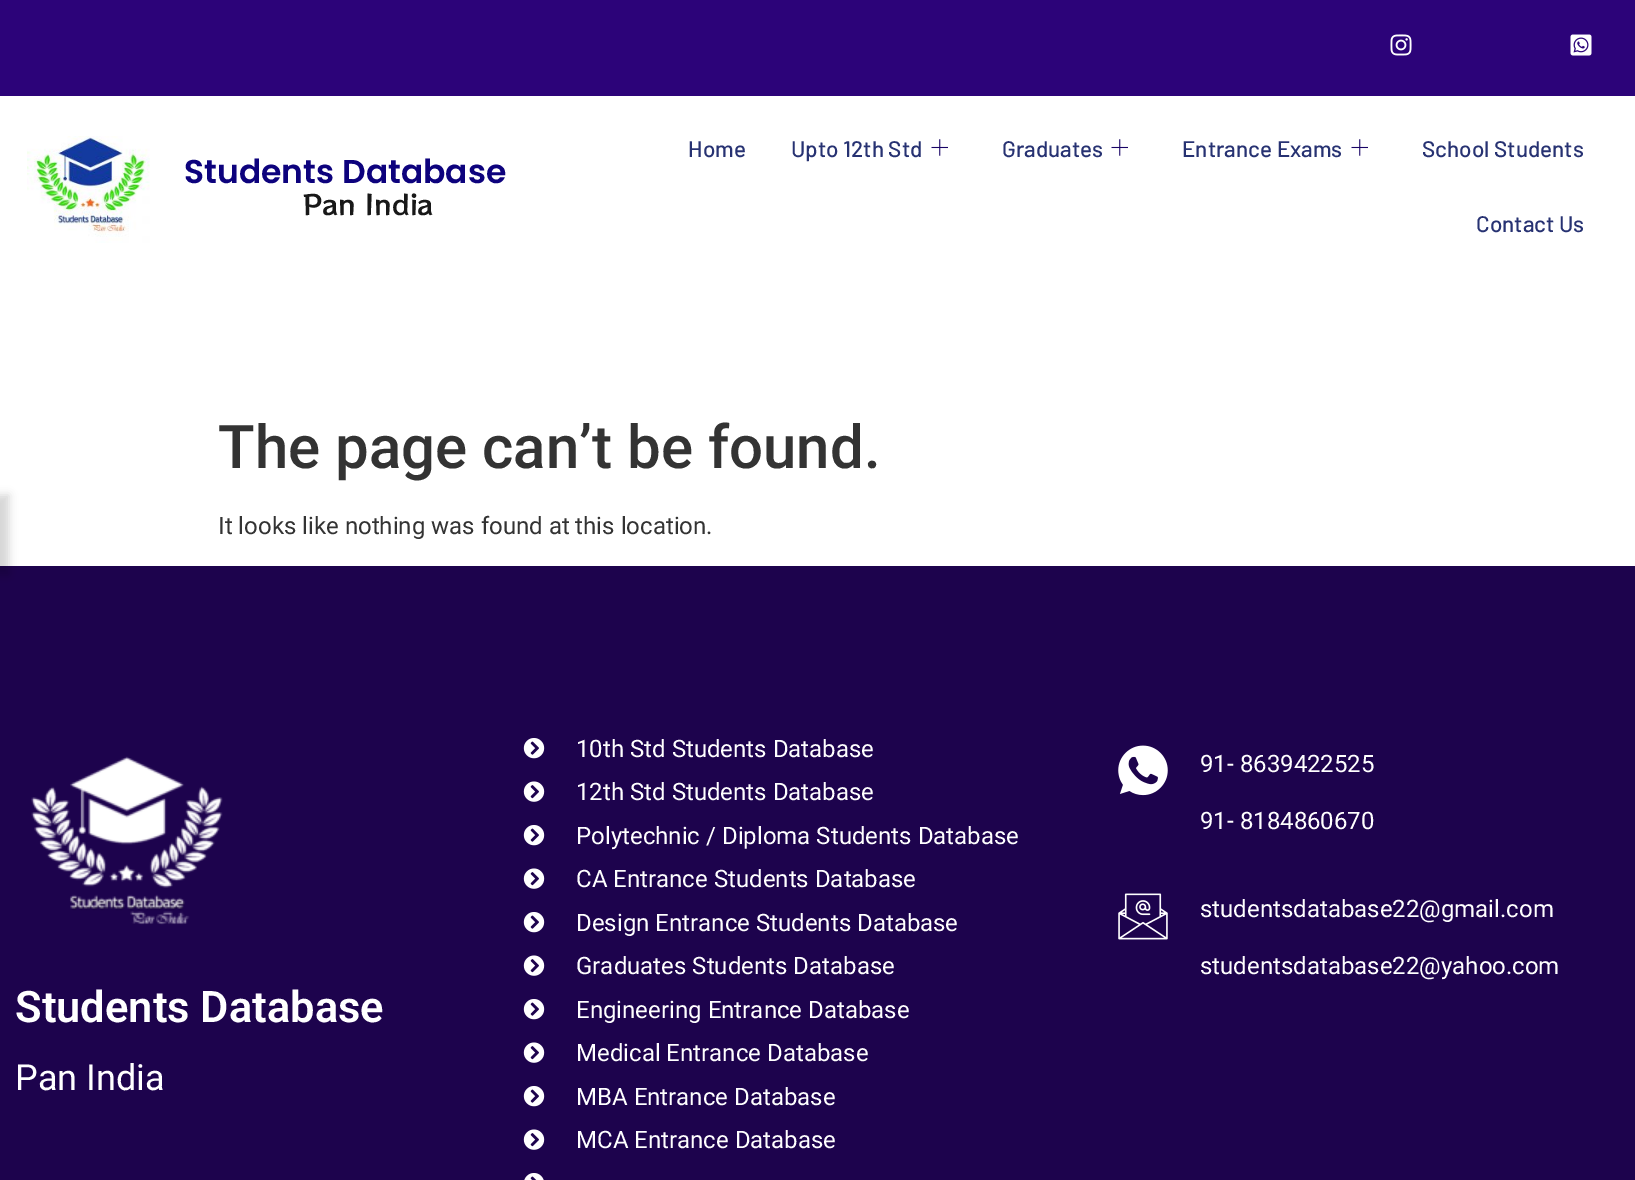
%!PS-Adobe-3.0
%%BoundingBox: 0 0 1635 1180
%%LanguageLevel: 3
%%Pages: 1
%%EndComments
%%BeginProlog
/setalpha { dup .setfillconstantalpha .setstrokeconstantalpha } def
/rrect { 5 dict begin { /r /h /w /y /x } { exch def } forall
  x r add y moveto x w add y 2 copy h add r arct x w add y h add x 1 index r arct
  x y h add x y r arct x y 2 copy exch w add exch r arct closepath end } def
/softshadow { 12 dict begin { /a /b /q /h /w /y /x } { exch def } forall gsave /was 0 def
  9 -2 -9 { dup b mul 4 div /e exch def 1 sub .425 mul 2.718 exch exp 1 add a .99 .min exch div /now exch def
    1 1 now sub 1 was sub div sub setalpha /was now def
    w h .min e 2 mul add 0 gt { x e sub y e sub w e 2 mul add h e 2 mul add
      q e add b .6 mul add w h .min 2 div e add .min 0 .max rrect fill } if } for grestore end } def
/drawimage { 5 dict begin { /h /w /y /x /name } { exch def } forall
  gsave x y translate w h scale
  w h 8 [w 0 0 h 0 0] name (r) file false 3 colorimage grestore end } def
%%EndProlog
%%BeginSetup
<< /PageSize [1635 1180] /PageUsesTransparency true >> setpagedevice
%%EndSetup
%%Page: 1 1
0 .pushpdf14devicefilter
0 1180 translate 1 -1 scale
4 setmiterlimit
1 setgray
0 0 1635 1180 rectfill
0.173 0.012 0.475 setrgbcolor
0 0 1635 96 rectfill
(images/1.raw) 1390 34 22 22 drawimage
(images/2.raw) 1570 34 22 22 drawimage
(images/3.raw) 27 136 123 107 drawimage
(images/4.raw) 931 139 17 17 drawimage
(images/4.raw) 1111 139 17 17 drawimage
(images/4.raw) 1351 139 17 17 drawimage
0.114 0.012 0.302 setrgbcolor
0 566 1635 614 rectfill
0 setgray
-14 495 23 80 0 4.5 0.16 softshadow
(images/5.raw) 523 738 22 21 drawimage
(images/6.raw) 523 781 22 21 drawimage
(images/5.raw) 523 825 22 21 drawimage
(images/6.raw) 523 868 22 21 drawimage
(images/5.raw) 523 912 22 21 drawimage
(images/6.raw) 523 955 22 21 drawimage
(images/5.raw) 523 999 22 21 drawimage
(images/6.raw) 523 1042 22 21 drawimage
(images/5.raw) 523 1086 22 21 drawimage
(images/6.raw) 523 1129 22 21 drawimage
(images/7.raw) 524 1173 20 7 drawimage
(images/8.raw) 1118 745 50 51 drawimage
(images/9.raw) 1118 893 50 47 drawimage
(images/10.raw) 31 756 192 169 drawimage
/Poppins-SemiBold [33 0 0 -33 0 0] selectfont
0.051 0.008 0.49 setrgbcolor
184 183 moveto (Students Database) show
/RocknRollOne-Regular [27 0 0 -27 0 0] selectfont
0.094 setgray
303 215 moveto (Pan India) show
/Barlow-Medium [22.5 0 0 -22.5 0 0] selectfont
0.153 0.196 0.447 setrgbcolor
688 157 moveto (Home) show
791 157 moveto (Upto 12th Std) show
1002 157 moveto (Graduates) show
1182 157 moveto (Entrance Exams) show
1422 157 moveto (School Students) show
1476 232 moveto (Contact Us) show
/Roboto-Medium [60 0 0 -60 0 0] selectfont
0.2 setgray
218 468 moveto (The page can’t be found.) show
/Roboto-Regular [24 0 0 -24 0 0] selectfont
218 534 moveto (It looks like nothing was found at this location.) show
1 setgray
576 757 moveto (10th Std Students Database) show
576 800 moveto (12th Std Students Database) show
576 844 moveto (Polytechnic / Diploma Students Database) show
576 887 moveto (CA Entrance Students Database) show
576 931 moveto (Design Entrance Students Database) show
576 974 moveto (Graduates Students Database) show
576 1018 moveto (Engineering Entrance Database) show
576 1061 moveto (Medical Entrance Database) show
576 1105 moveto (MBA Entrance Database) show
576 1148 moveto (MCA Entrance Database) show
1200 772 moveto (91- 8639422525) show
1200 829 moveto (91- 8184860670) show
1200 917 moveto (studentsdatabase22@gmail.com) show
1200 974 moveto (studentsdatabase22@yahoo.com) show
/Roboto-SemiBold [43.5 0 0 -43.5 0 0] selectfont
15 1022 moveto (Students Database) show
/Roboto-Regular [36 0 0 -36 0 0] selectfont
15 1090 moveto (Pan India) show
.poppdf14devicefilter showpage
%%EOF
